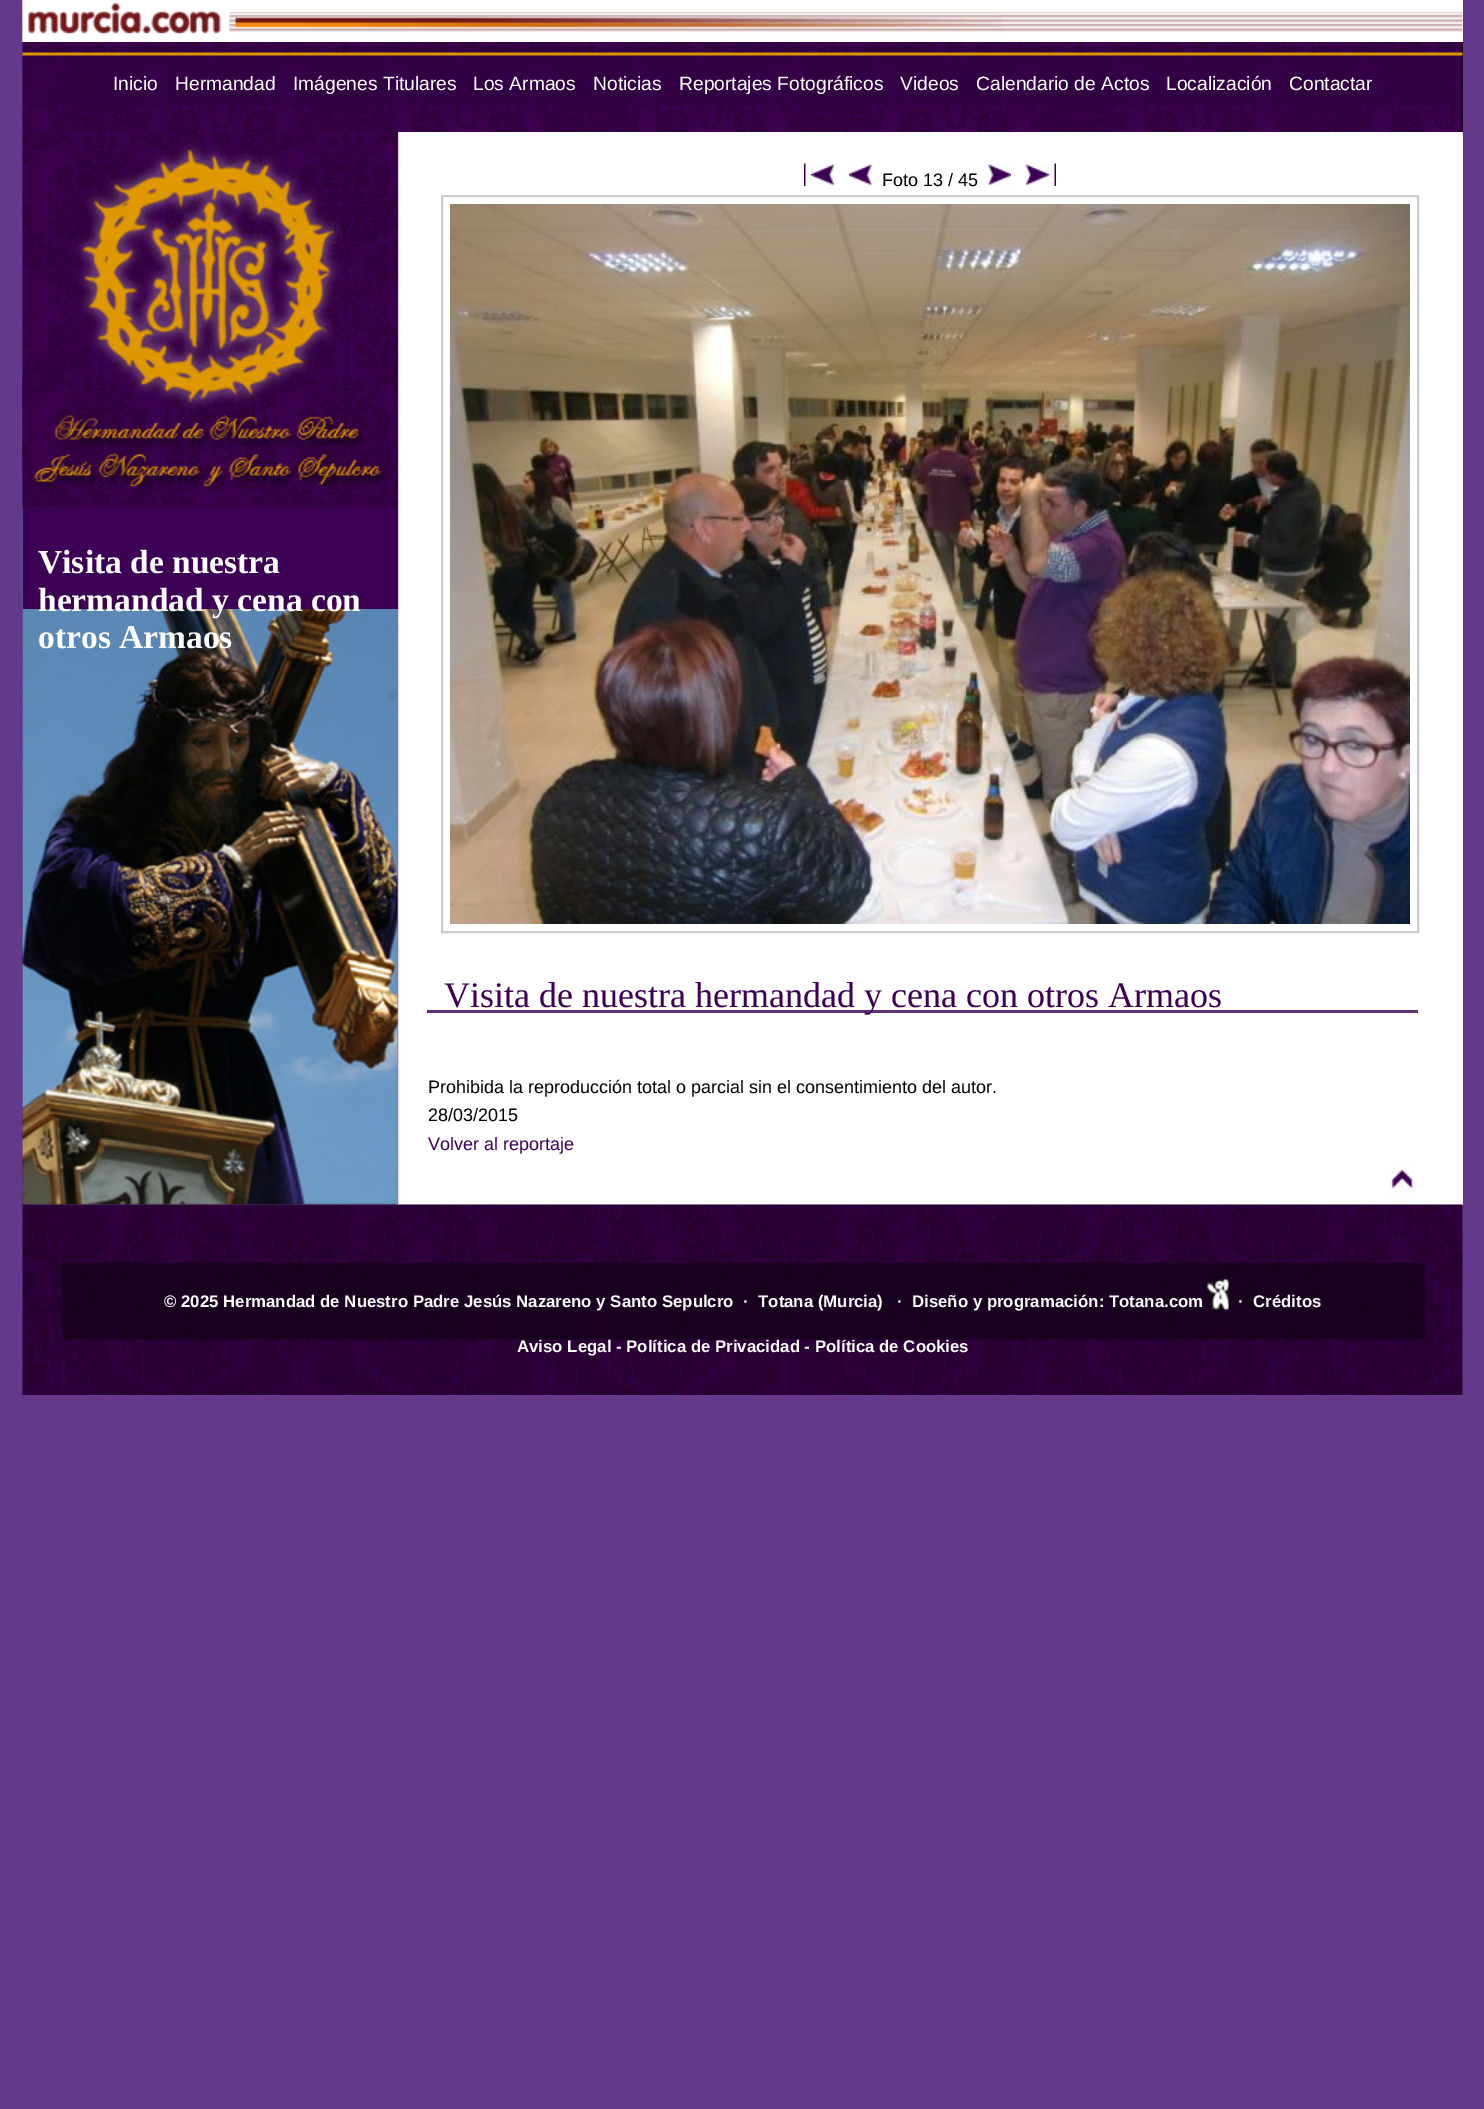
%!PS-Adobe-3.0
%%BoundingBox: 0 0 1484 2109
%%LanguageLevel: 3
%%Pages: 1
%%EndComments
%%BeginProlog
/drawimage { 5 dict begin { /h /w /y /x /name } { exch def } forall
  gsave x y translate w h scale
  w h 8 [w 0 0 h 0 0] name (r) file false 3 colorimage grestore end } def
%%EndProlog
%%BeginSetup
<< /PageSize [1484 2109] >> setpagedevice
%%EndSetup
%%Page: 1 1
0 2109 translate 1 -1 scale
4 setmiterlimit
0.392 0.224 0.545 setrgbcolor
0 0 1484 2109 rectfill
0.902 0.894 0.898 setrgbcolor
23 132 1440 1073 rectfill
(images/1.raw) 22 0 1441 1205 drawimage
(images/2.raw) 22 375 376 830 drawimage
1 setgray
1462 0 1 42 rectfill
(images/3.raw) 22 0 1441 42 drawimage
(images/4.raw) 22 0 980 42 drawimage
0 setgray
1462 42 1 90 rectfill
(images/5.raw) 22 42 1441 90 drawimage
0.235 0.004 0.333 setrgbcolor
23 132 375 477 rectfill
(images/6.raw) 22 132 376 375 drawimage
(images/7.raw) 804 163 30 23 drawimage
(images/8.raw) 849 163 23 23 drawimage
(images/9.raw) 988 163 23 23 drawimage
(images/10.raw) 1026 163 30 23 drawimage
0.8 setgray
2 setlinewidth
442 196 976 736 rectstroke
(images/11.raw) 450 204 960 720 drawimage
0.376 0.188 0.459 setrgbcolor
427 1010 991 3 rectfill
(images/12.raw) 1387 1161 30 35 drawimage
(images/13.raw) 22 1204 1441 191 drawimage
(images/14.raw) 1207 1279 22 31 drawimage
/LiberationSans-Regular [19.25 0 0 -19.25 0 0] selectfont
1 setgray
113 90 moveto (Inicio) show
175 90 moveto (Hermandad) show
293 90 moveto (Imágenes Titulares) show
473 90 moveto (Los Armaos) show
593 90 moveto (Noticias) show
679 90 moveto (Reportajes Fotográficos) show
900 90 moveto (Videos) show
976 90 moveto (Calendario de Actos) show
1166 90 moveto (Localización) show
1289 90 moveto (Contactar) show
/LiberationSerif-Bold [33.5 0 0 -33.5 0 0] selectfont
38 573 moveto (Visita de nuestra) show
38 611 moveto (hermandad y cena con) show
38 648 moveto (otros Armaos) show
/LiberationSans-Regular [18 0 0 -18 0 0] selectfont
0 setgray
882 186 moveto (Foto 13 / 45) show
/LiberationSerif-Regular [36 0 0 -36 0 0] selectfont
0.235 0.004 0.333 setrgbcolor
444 1007 moveto (Visita de nuestra hermandad y cena con otros Armaos) show
/LiberationSans-Regular [18 0 0 -18 0 0] selectfont
0 setgray
428 1093 moveto (Prohibida la reproducción total o parcial sin el consentimiento del autor.) show
428 1121 moveto (28/03/2015) show
0.235 0.004 0.333 setrgbcolor
428 1150 moveto (Volver al reportaje) show
/LiberationSans-Bold [16.8 0 0 -16.8 0 0] selectfont
1 setgray
164 1307 moveto (© 2025 Hermandad de Nuestro Padre Jesús Nazareno y Santo Sepulcro  ·) show
758 1307 moveto (Totana \(Murcia\)) show
897 1307 moveto (·  Diseño y programación: Totana.com) show
1238 1307 moveto (·) show
1253 1307 moveto (Créditos) show
517 1352 moveto (Aviso Legal - Política de Privacidad - Política de Cookies) show
showpage
%%EOF
